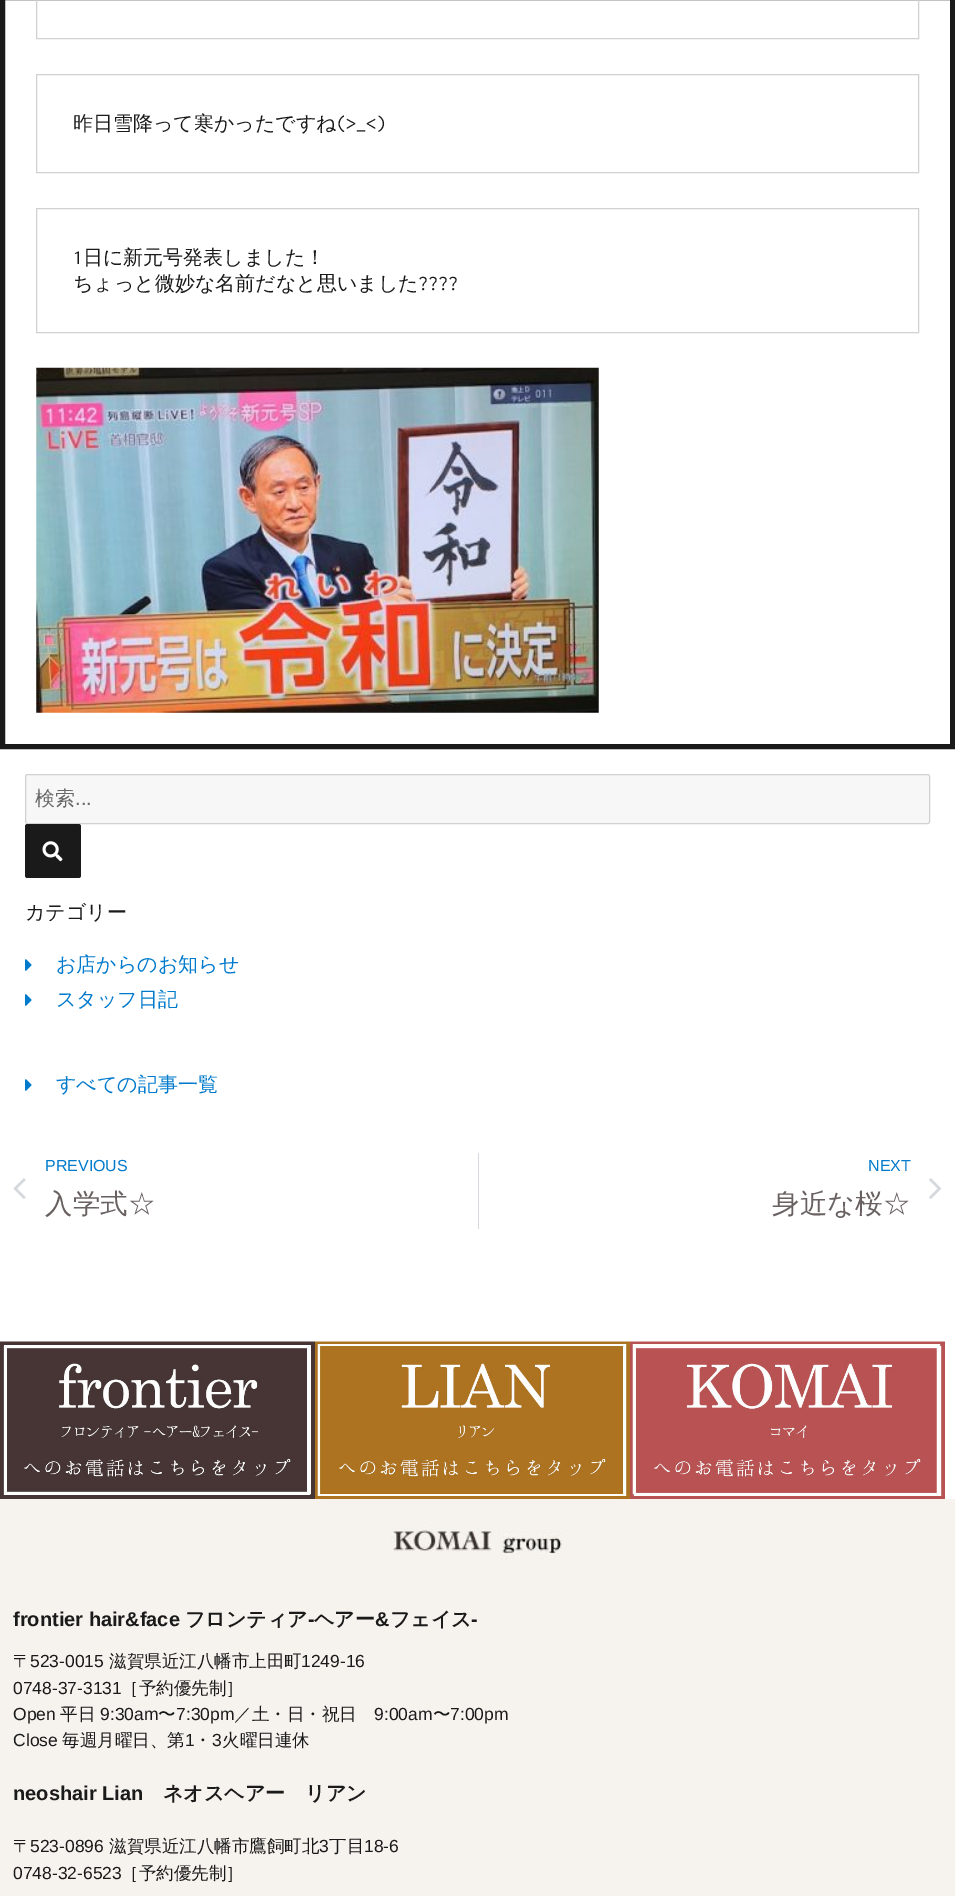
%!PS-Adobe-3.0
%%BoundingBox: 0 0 955 1896
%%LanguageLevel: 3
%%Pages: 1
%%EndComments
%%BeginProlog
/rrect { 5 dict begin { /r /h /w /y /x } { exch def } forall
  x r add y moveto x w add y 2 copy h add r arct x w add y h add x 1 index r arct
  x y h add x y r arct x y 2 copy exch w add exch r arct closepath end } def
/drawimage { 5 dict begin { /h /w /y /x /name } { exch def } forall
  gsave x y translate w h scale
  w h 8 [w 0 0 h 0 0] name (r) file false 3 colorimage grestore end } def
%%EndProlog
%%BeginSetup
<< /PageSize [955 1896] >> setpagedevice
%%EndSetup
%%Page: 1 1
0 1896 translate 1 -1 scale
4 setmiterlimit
1 setgray
0 0 955 1896 rectfill
0.102 setgray
5 setlinewidth
2.5 -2.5 950 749 rectstroke
0.82 setgray
1 setlinewidth
36.5 -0.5 882 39 rectstroke
36.5 74.5 882 98 rectstroke
36.5 208.5 882 124 rectstroke
(images/1.raw) 36 367 563 346 drawimage
0.969 setgray
25.5 774.5 904 49 2 rrect gsave fill grestore
0.82 setgray
stroke
0.102 setgray
25 824 56 54 2.5 rrect fill
(images/2.raw) 42 841 21 21 drawimage
(images/3.raw) 25 959 7 12 drawimage
(images/3.raw) 25 994 7 12 drawimage
(images/3.raw) 25 1079 7 12 drawimage
(images/4.raw) 13 1178 13 21 drawimage
0.835 0.847 0.863 setrgbcolor
478 1153 1 76 rectfill
(images/5.raw) 929 1178 12 21 drawimage
(images/6.raw) 0 1341 315 158 drawimage
(images/7.raw) 315 1341 315 158 drawimage
(images/8.raw) 630 1341 315 158 drawimage
0.965 0.953 0.933 setrgbcolor
0 1499 955 397 rectfill
(images/9.raw) 391 1523 171 36 drawimage
/WenQuanYiZenHei-Medium [20 0 0 -20 0 0] selectfont
0.102 setgray
73 130 moveto (昨日雪降って寒かったですね) show
/Inconsolata-Regular [20 0 0 -20 0 0] selectfont
336 130 moveto (\(>_<\)) show
73 264 moveto (1) show
/WenQuanYiZenHei-Medium [20 0 0 -20 0 0] selectfont
83 264 moveto (日に新元号発表しました！) show
73 290 moveto (ちょっと微妙な名前だなと思いました) show
/Inconsolata-Regular [20 0 0 -20 0 0] selectfont
418 290 moveto (????) show
/WenQuanYiZenHei-Medium [20 0 0 -20 0 0] selectfont
0.408 setgray
35 805 moveto (検索) show
/LiberationSans-Regular [20 0 0 -20 0 0] selectfont
75 805 moveto (...) show
/WenQuanYiZenHei-Medium [20 0 0 -20 0 0] selectfont
0.102 setgray
25 919 moveto (カテゴリー) show
0 0.478 0.8 setrgbcolor
56 971 moveto (お店からのお知らせ) show
56 1006 moveto (スタッフ日記) show
56 1091 moveto (すべての記事一覧) show
/LiberationSans-Regular [16 0 0 -16 0 0] selectfont
45 1171 moveto (PREVIOUS) show
/WenQuanYiZenHei-Medium [27.5 0 0 -27.5 0 0] selectfont
0.412 0.38 0.38 setrgbcolor
45 1213 moveto (入学式☆) show
/LiberationSans-Regular [16 0 0 -16 0 0] selectfont
0 0.478 0.8 setrgbcolor
868 1171 moveto (NEXT) show
/WenQuanYiZenHei-Medium [27.5 0 0 -27.5 0 0] selectfont
0.412 0.38 0.38 setrgbcolor
772 1213 moveto (身近な桜☆) show
/LiberationSans-Bold [20 0 0 -20 0 0] selectfont
0.102 setgray
13 1626 moveto (frontier hair&face) show
/WenQuanYiZenHei-Bold [20 0 0 -20 0 0] selectfont
185 1626 moveto (フロンティア) show
/LiberationSans-Bold [20 0 0 -20 0 0] selectfont
308 1626 moveto (-) show
/WenQuanYiZenHei-Bold [20 0 0 -20 0 0] selectfont
314 1626 moveto (ヘアー) show
/LiberationSans-Bold [20 0 0 -20 0 0] selectfont
375 1626 moveto (&) show
/WenQuanYiZenHei-Bold [20 0 0 -20 0 0] selectfont
390 1626 moveto (フェイス) show
/LiberationSans-Bold [20 0 0 -20 0 0] selectfont
471 1626 moveto (-) show
/WenQuanYiZenHei-Medium [17.5 0 0 -17.5 0 0] selectfont
13 1667 moveto (〒) show
/LiberationSans-Regular [17.5 0 0 -17.5 0 0] selectfont
30 1667 moveto (523-0015) show
/WenQuanYiZenHei-Medium [17.5 0 0 -17.5 0 0] selectfont
109 1667 moveto (滋賀県近江八幡市上田町) show
/LiberationSans-Regular [17.5 0 0 -17.5 0 0] selectfont
301 1667 moveto (1249-16) show
13 1694 moveto (0748-37-3131) show
/WenQuanYiZenHei-Medium [17.5 0 0 -17.5 0 0] selectfont
121 1694 moveto (［予約優先制］) show
/LiberationSans-Regular [17.5 0 0 -17.5 0 0] selectfont
13 1720 moveto (Open) show
/WenQuanYiZenHei-Medium [17.5 0 0 -17.5 0 0] selectfont
60 1720 moveto (平日) show
/LiberationSans-Regular [17.5 0 0 -17.5 0 0] selectfont
100 1720 moveto (9:30am) show
/WenQuanYiZenHei-Medium [17.5 0 0 -17.5 0 0] selectfont
158 1720 moveto (〜) show
/LiberationSans-Regular [17.5 0 0 -17.5 0 0] selectfont
176 1720 moveto (7:30pm) show
/WenQuanYiZenHei-Medium [17.5 0 0 -17.5 0 0] selectfont
234 1720 moveto (／土・日・祝日) show
/LiberationSans-Regular [17.5 0 0 -17.5 0 0] selectfont
374 1720 moveto (9:00am) show
/WenQuanYiZenHei-Medium [17.5 0 0 -17.5 0 0] selectfont
433 1720 moveto (〜) show
/LiberationSans-Regular [17.5 0 0 -17.5 0 0] selectfont
450 1720 moveto (7:00pm) show
13 1746 moveto (Close) show
/WenQuanYiZenHei-Medium [17.5 0 0 -17.5 0 0] selectfont
62 1746 moveto (毎週月曜日、第) show
/LiberationSans-Regular [17.5 0 0 -17.5 0 0] selectfont
185 1746 moveto (1) show
/WenQuanYiZenHei-Medium [17.5 0 0 -17.5 0 0] selectfont
194 1746 moveto (・) show
/LiberationSans-Regular [17.5 0 0 -17.5 0 0] selectfont
212 1746 moveto (3) show
/WenQuanYiZenHei-Medium [17.5 0 0 -17.5 0 0] selectfont
222 1746 moveto (火曜日連休) show
/LiberationSans-Bold [20 0 0 -20 0 0] selectfont
13 1800 moveto (neoshair Lian) show
/WenQuanYiZenHei-Bold [20 0 0 -20 0 0] selectfont
163 1800 moveto (ネオスヘアー　リアン) show
/WenQuanYiZenHei-Medium [17.5 0 0 -17.5 0 0] selectfont
13 1852 moveto (〒) show
/LiberationSans-Regular [17.5 0 0 -17.5 0 0] selectfont
30 1852 moveto (523-0896) show
/WenQuanYiZenHei-Medium [17.5 0 0 -17.5 0 0] selectfont
109 1852 moveto (滋賀県近江八幡市鷹飼町北) show
/LiberationSans-Regular [17.5 0 0 -17.5 0 0] selectfont
319 1852 moveto (3) show
/WenQuanYiZenHei-Medium [17.5 0 0 -17.5 0 0] selectfont
329 1852 moveto (丁目) show
/LiberationSans-Regular [17.5 0 0 -17.5 0 0] selectfont
364 1852 moveto (18-6) show
13 1879 moveto (0748-32-6523) show
/WenQuanYiZenHei-Medium [17.5 0 0 -17.5 0 0] selectfont
121 1879 moveto (［予約優先制］) show
showpage
%%EOF
